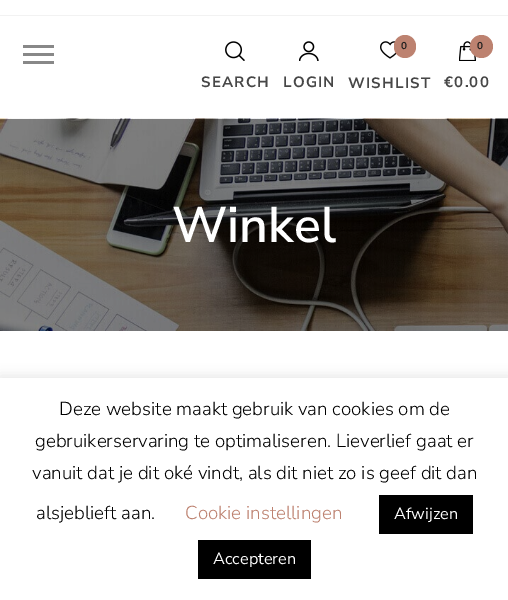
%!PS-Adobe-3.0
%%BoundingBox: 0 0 508 600
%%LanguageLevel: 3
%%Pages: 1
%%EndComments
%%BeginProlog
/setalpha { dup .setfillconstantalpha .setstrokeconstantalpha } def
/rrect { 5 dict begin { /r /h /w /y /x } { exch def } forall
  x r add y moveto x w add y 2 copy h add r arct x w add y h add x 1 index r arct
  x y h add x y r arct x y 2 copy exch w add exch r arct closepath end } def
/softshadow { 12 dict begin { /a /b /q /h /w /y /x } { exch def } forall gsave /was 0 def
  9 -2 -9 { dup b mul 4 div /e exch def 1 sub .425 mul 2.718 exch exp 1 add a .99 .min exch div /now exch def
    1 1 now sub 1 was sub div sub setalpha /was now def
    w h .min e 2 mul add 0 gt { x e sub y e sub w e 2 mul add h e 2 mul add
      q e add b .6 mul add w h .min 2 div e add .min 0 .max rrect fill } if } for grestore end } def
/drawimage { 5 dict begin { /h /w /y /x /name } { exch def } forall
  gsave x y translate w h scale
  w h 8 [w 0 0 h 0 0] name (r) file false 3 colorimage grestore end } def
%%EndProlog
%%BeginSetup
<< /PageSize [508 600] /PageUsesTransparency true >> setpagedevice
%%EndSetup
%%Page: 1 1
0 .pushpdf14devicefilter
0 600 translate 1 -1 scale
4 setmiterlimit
1 setgray
0 0 508 600 rectfill
0.949 setgray
0 15 508 1 rectfill
0 118 508 1 rectfill
0.533 setgray
23 45 31 3 rectfill
23 53 31 3 rectfill
23 61 31 3 rectfill
(images/1.raw) 225 41 20 20 drawimage
(images/2.raw) 299 41 20 20 drawimage
(images/3.raw) 380 41 17 18 drawimage
0.741 0.51 0.439 setrgbcolor
394 35 22 23 11 rrect fill
(images/4.raw) 459 41 17 20 drawimage
newpath 481.5 46.5 11.5 0 360 arc closepath fill
(images/5.raw) 0 118 508 213 drawimage
0.675 0.671 0.671 setrgbcolor
0 376 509 223 0 6 0.3 softshadow
1 setgray
0 378 508 222 rectfill
0 setgray
379 495 94 39 rectfill
198 540 113 39 rectfill
/NunitoSans-Bold [15 0 0 -15 0 0] selectfont
0.278 setgray
201 87 moveto 1.25 0 (SEARCH) ashow
283 87 moveto 1.25 0 (LOGIN) ashow
/NunitoSans-Bold [10 0 0 -10 0 0] selectfont
0.125 setgray
401 49 moveto 1.25 0 (0) ashow
/NunitoSans-Bold [15 0 0 -15 0 0] selectfont
0.278 setgray
348 88 moveto 1.25 0 (WISHLIST) ashow
/NunitoSans-Bold [10 0 0 -10 0 0] selectfont
0.125 setgray
477 49 moveto 1.25 0 (0) ashow
/NunitoSans-Bold [15 0 0 -15 0 0] selectfont
0.278 setgray
444 87 moveto 1.25 0 (€0.00) ashow
/NunitoSans-SemiBold [50 0 0 -50 0 0] selectfont
1 setgray
172 242 moveto (Winkel) show
/NunitoSans-Light [18.75 0 0 -18.75 0 0] selectfont
0 setgray
59 415 moveto (Deze website maakt gebruik van cookies om de) show
35 447 moveto (gebruikerservaring te optimaliseren. Lieverlief gaat er) show
32 479 moveto (vanuit dat je dit oké vindt, als dit niet zo is geef dit dan) show
36 519 moveto (alsjeblieft aan.) show
0.741 0.51 0.439 setrgbcolor
185 519 moveto (Cookie instellingen) show
/NunitoSans-Regular [16.25 0 0 -16.25 0 0] selectfont
1 setgray
394 519 moveto (Afwijzen) show
213 564 moveto (Accepteren) show
.poppdf14devicefilter showpage
%%EOF
